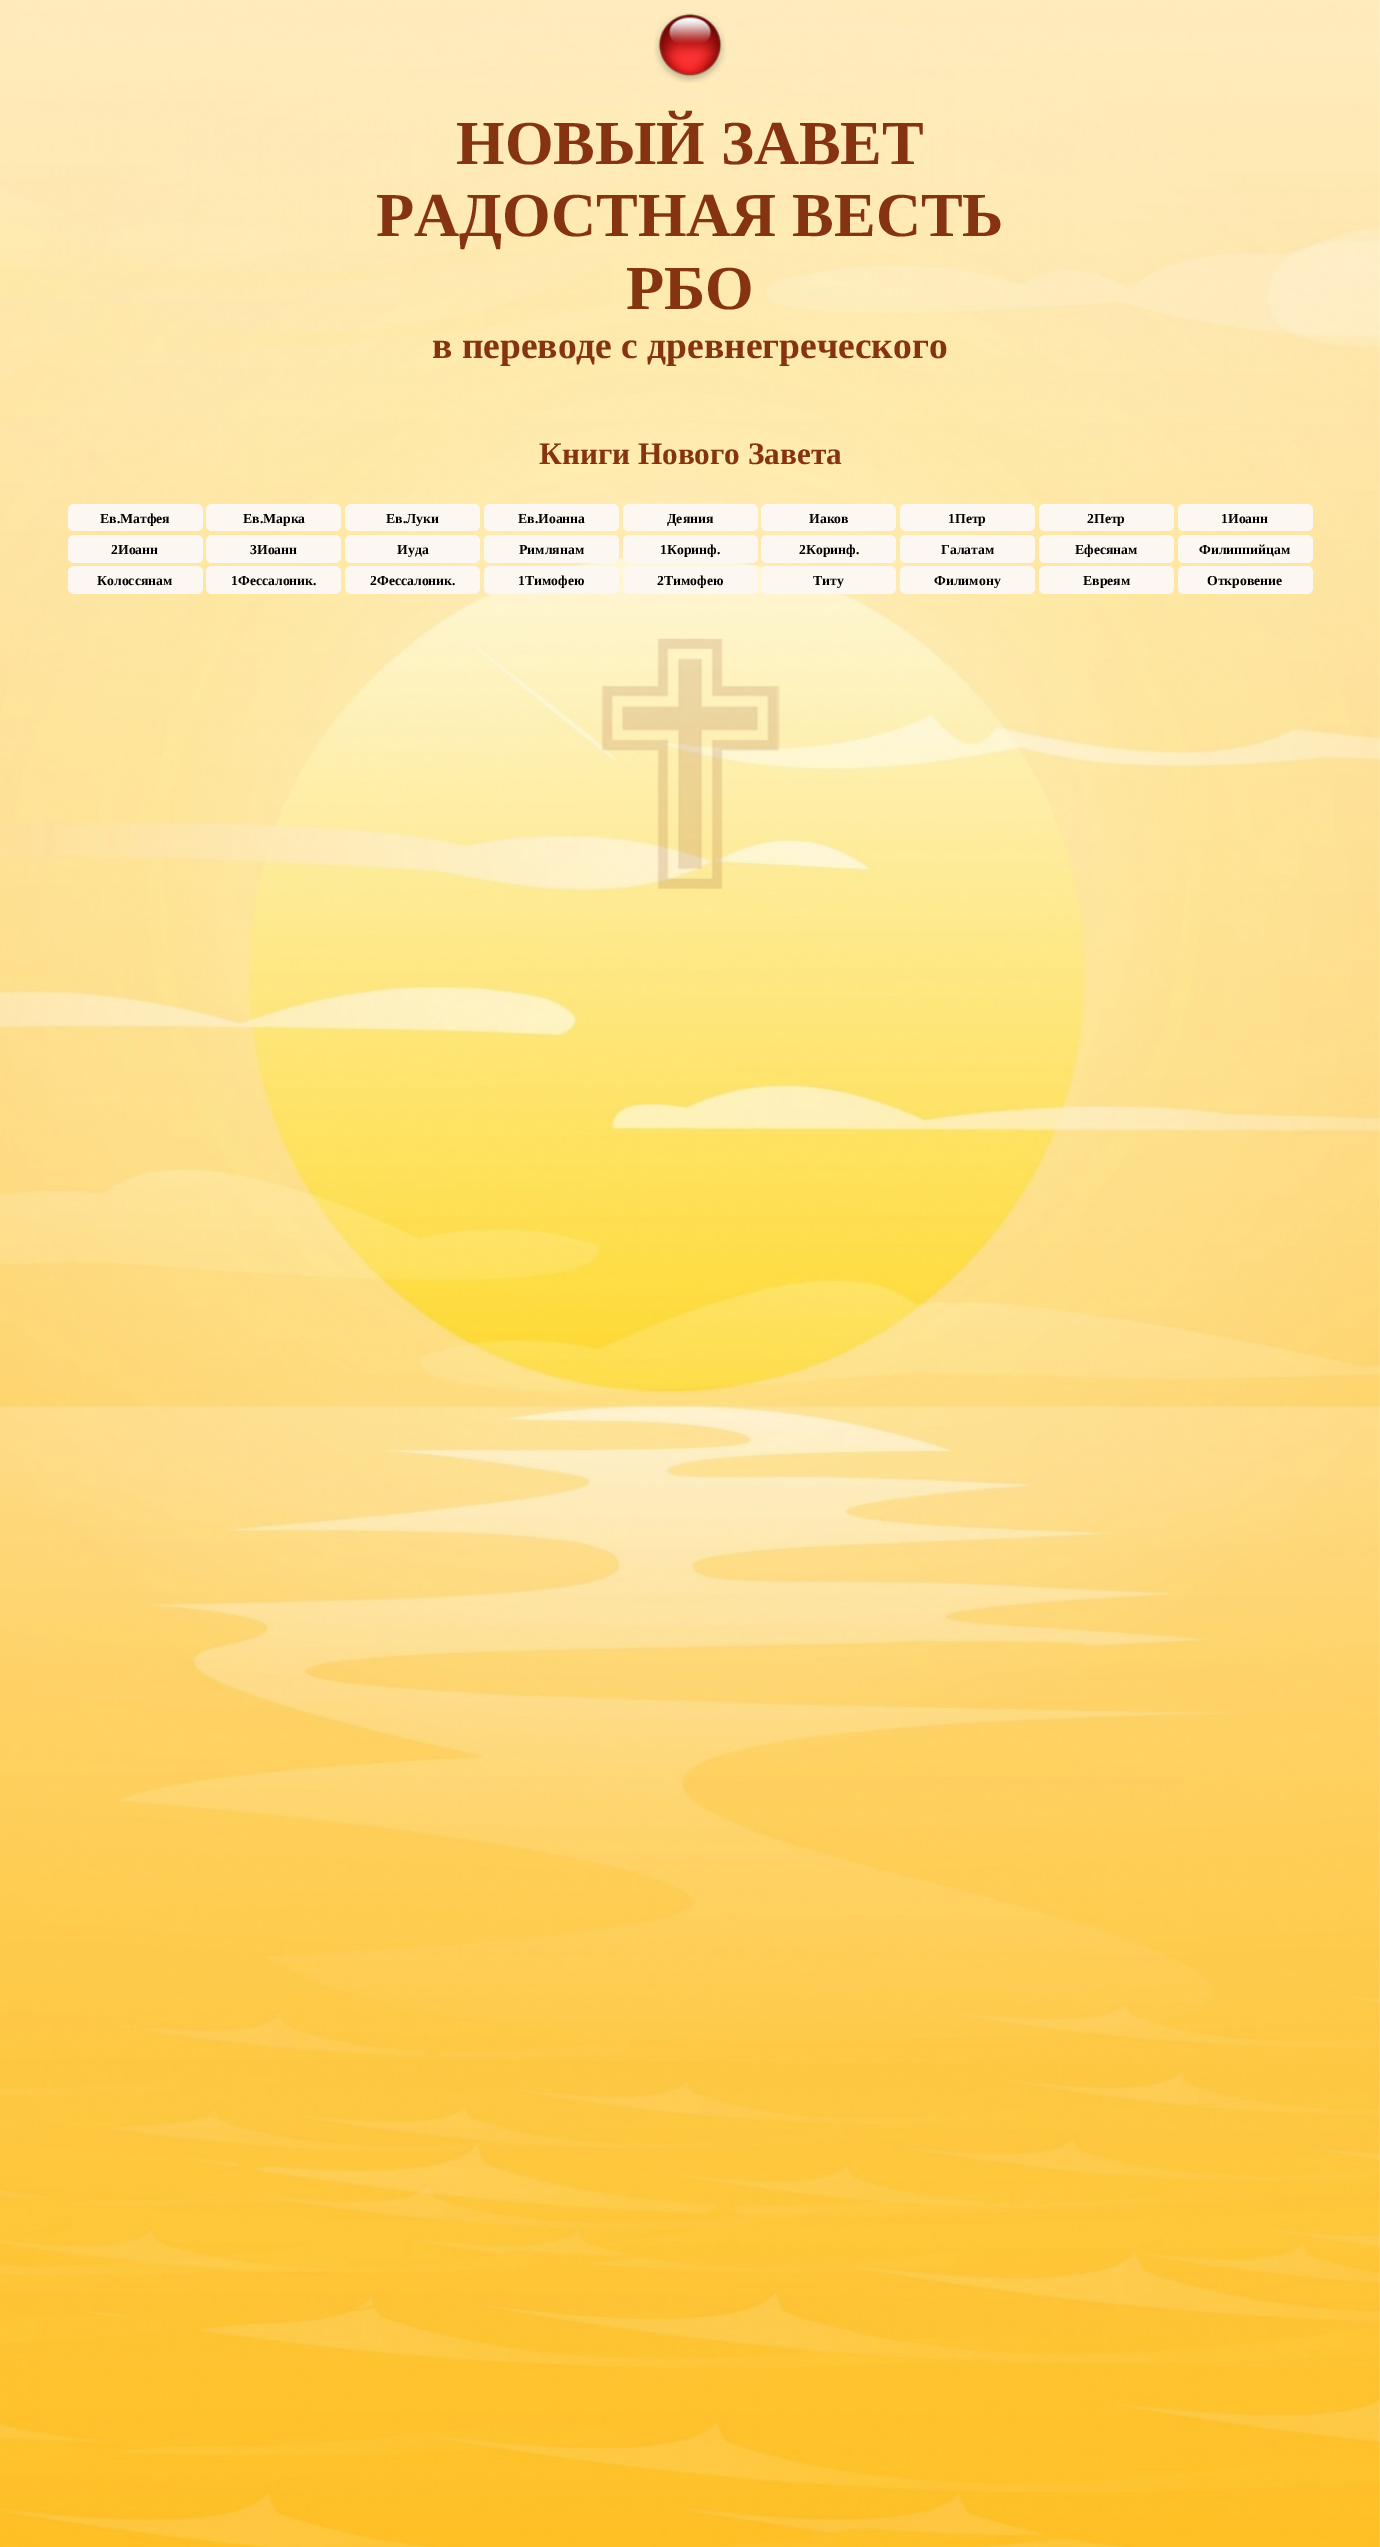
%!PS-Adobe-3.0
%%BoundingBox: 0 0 1380 2547
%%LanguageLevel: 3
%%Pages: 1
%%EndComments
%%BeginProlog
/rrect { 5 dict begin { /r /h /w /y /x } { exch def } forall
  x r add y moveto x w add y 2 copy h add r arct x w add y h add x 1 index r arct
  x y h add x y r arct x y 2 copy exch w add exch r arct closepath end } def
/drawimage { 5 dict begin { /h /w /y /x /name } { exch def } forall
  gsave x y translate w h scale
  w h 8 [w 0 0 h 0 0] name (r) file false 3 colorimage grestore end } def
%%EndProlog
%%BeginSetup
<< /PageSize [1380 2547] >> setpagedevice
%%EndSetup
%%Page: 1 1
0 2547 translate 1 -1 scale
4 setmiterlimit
1 setgray
0 0 1380 2547 rectfill
(images/1.raw) 0 0 1380 2547 drawimage
(images/2.raw) 654 13 72 70 drawimage
0.988 0.969 0.941 setrgbcolor
68 504 135 27 6 rrect fill
206 504 135 27 6 rrect fill
345 504 135 27 6 rrect fill
484 504 135 27 6 rrect fill
623 504 135 27 6 rrect fill
761 504 135 27 6 rrect fill
900 504 135 27 6 rrect fill
1039 504 135 27 6 rrect fill
1178 504 135 27 6 rrect fill
68 535 135 28 6 rrect fill
206 535 135 28 6 rrect fill
345 535 135 28 6 rrect fill
484 535 135 28 6 rrect fill
623 535 135 28 6 rrect fill
761 535 135 28 6 rrect fill
900 535 135 28 6 rrect fill
1039 535 135 28 6 rrect fill
1178 535 135 28 6 rrect fill
68 566 135 28 6 rrect fill
206 566 135 28 6 rrect fill
345 566 135 28 6 rrect fill
484 566 135 28 6 rrect fill
623 566 135 28 6 rrect fill
761 566 135 28 6 rrect fill
900 566 135 28 6 rrect fill
1039 566 135 28 6 rrect fill
1178 566 135 28 6 rrect fill
(images/3.raw) 601 638 179 251 drawimage
/LiberationSerif-Bold [62.5 0 0 -62.5 0 0] selectfont
0.525 0.2 0.067 setrgbcolor
456 164 moveto (НОВЫЙ ЗАВЕТ) show
376 236 moveto (РАДОСТНАЯ ВЕСТЬ) show
626 309 moveto (РБО) show
/LiberationSerif-Bold [37.5 0 0 -37.5 0 0] selectfont
432 358 moveto (в переводе с древнегреческого) show
/LiberationSerif-Bold [31.25 0 0 -31.25 0 0] selectfont
539 464 moveto (Книги Нового Завета) show
/LiberationSerif-Bold [13.75 0 0 -13.75 0 0] selectfont
0 setgray
100 523 moveto (Ев.Матфея) show
243 523 moveto (Ев.Марка) show
386 523 moveto (Ев.Луки) show
518 523 moveto (Ев.Иоанна) show
667 523 moveto (Деяния) show
809 523 moveto (Иаков) show
948 523 moveto (1Петр) show
1087 523 moveto (2Петр) show
1221 523 moveto (1Иоанн) show
111 554 moveto (2Иоанн) show
250 554 moveto (3Иоанн) show
397 554 moveto (Иуда) show
519 554 moveto (Римлянам) show
660 554 moveto (1Коринф.) show
799 554 moveto (2Коринф.) show
941 554 moveto (Галатам) show
1075 554 moveto (Ефесянам) show
1199 554 moveto (Филиппийцам) show
97 585 moveto (Колоссянам) show
231 585 moveto (1Фессалоник.) show
370 585 moveto (2Фессалоник.) show
518 585 moveto (1Тимофею) show
657 585 moveto (2Тимофею) show
813 585 moveto (Титу) show
934 585 moveto (Филимону) show
1083 585 moveto (Евреям) show
1207 585 moveto (Откровение) show
showpage
%%EOF
